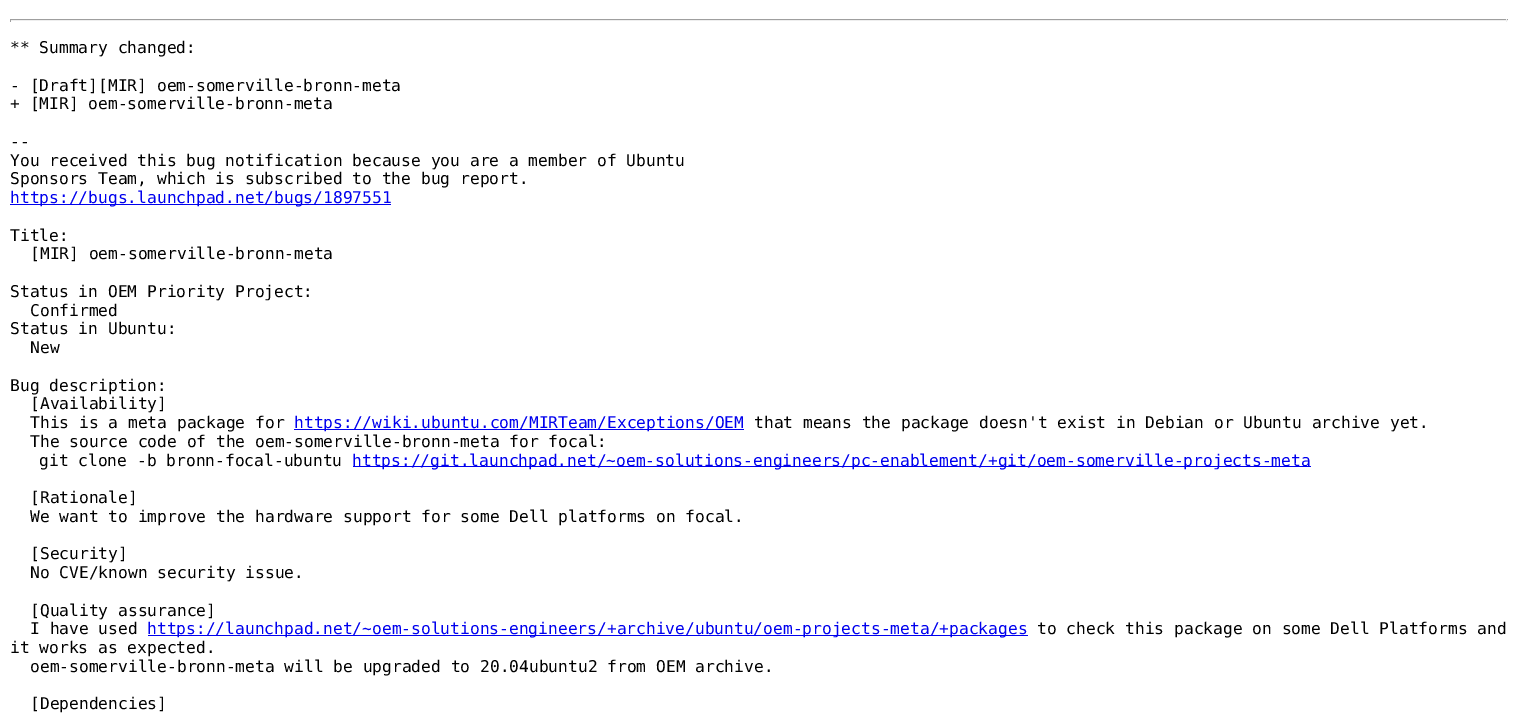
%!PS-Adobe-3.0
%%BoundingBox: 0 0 1517 723
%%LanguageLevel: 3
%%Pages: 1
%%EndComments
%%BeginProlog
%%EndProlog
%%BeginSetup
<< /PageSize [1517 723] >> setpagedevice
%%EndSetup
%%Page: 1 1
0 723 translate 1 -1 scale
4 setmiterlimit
1 setgray
0 0 1517 723 rectfill
0.624 setgray
10 19 1498 1 rectfill
0.933 setgray
1506 19 1 3 rectfill
10 20 1498 1 rectfill
0.624 setgray
10 19 1 3 rectfill
0 0 0.933 setrgbcolor
10 204 381 1 rectfill
294 429 450 1 rectfill
353 466 958 1 rectfill
148 635 880 1 rectfill
/DejaVuSansMono-Regular [16.25 0 0 -16.25 0 0] selectfont
0 setgray
10 53 moveto (** Summary changed:) show
10 91 moveto (- [Draft][MIR] oem-somerville-bronn-meta) show
10 109 moveto (+ [MIR] oem-somerville-bronn-meta) show
10 147 moveto (--) show
10 166 moveto (You received this bug notification because you are a member of Ubuntu) show
10 184 moveto (Sponsors Team, which is subscribed to the bug report.) show
0 0 0.933 setrgbcolor
10 203 moveto (https://bugs.launchpad.net/bugs/1897551) show
0 setgray
10 241 moveto (Title:) show
30 259 moveto ([MIR] oem-somerville-bronn-meta) show
10 297 moveto (Status in OEM Priority Project:) show
30 316 moveto (Confirmed) show
10 334 moveto (Status in Ubuntu:) show
30 353 moveto (New) show
10 391 moveto (Bug description:) show
30 409 moveto ([Availability]) show
30 428 moveto (This is a meta package for) show
0 0 0.933 setrgbcolor
294 428 moveto (https://wiki.ubuntu.com/MIRTeam/Exceptions/OEM) show
0 setgray
754 428 moveto (that means the package doesn't exist in Debian or Ubuntu archive yet.) show
30 447 moveto (The source code of the oem-somerville-bronn-meta for focal:) show
39 466 moveto (git clone -b bronn-focal-ubuntu) show
0 0 0.933 setrgbcolor
352 466 moveto (https://git.launchpad.net/~oem-solutions-engineers/pc-enablement/+git/oem-somerville-projects-meta) show
0 setgray
30 503 moveto ([Rationale]) show
30 522 moveto (We want to improve the hardware support for some Dell platforms on focal.) show
30 559 moveto ([Security]) show
30 578 moveto (No CVE/known security issue.) show
30 616 moveto ([Quality assurance]) show
30 634 moveto (I have used) show
0 0 0.933 setrgbcolor
147 634 moveto (https://launchpad.net/~oem-solutions-engineers/+archive/ubuntu/oem-projects-meta/+packages) show
0 setgray
1037 634 moveto (to check this package on some Dell Platforms and) show
10 653 moveto (it works as expected.) show
30 672 moveto (oem-somerville-bronn-meta will be upgraded to 20.04ubuntu2 from OEM archive.) show
30 709 moveto ([Dependencies]) show
showpage
%%EOF
